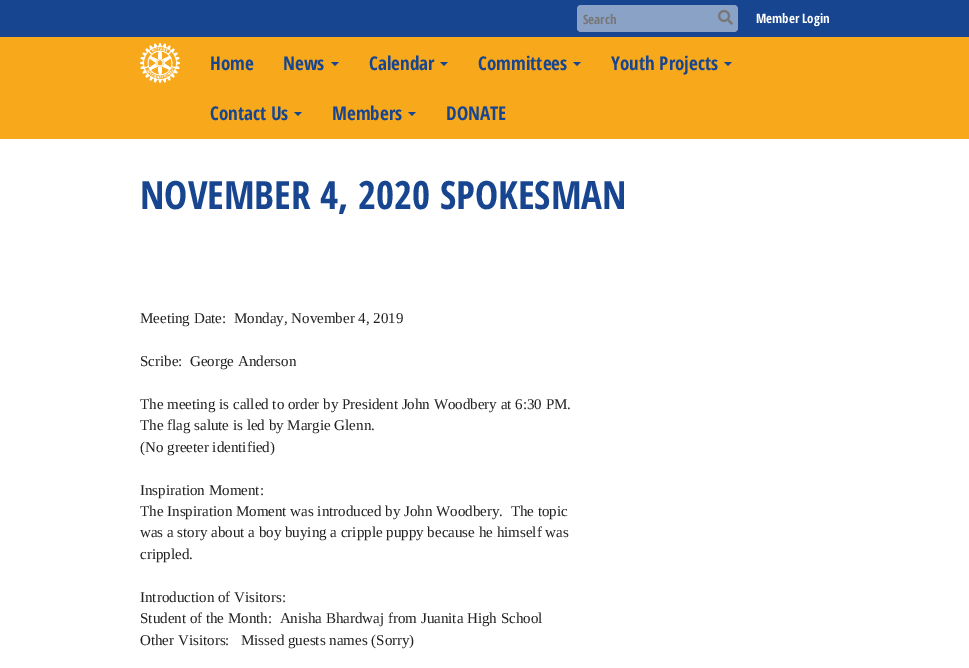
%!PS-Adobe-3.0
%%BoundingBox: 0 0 969 668
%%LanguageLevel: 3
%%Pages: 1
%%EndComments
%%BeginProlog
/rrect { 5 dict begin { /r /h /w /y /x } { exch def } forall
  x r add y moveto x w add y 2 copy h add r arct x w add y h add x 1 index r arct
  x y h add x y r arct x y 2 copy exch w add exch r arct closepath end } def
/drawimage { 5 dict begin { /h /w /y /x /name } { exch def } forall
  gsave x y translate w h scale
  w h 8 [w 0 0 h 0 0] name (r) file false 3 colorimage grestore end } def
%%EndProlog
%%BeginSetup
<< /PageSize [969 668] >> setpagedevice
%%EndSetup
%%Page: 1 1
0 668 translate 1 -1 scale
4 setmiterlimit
1 setgray
0 0 969 668 rectfill
0.09 0.271 0.561 setrgbcolor
0 0 969 37 rectfill
0.545 0.635 0.78 setrgbcolor
577 5 161 27 4 rrect fill
(images/1.raw) 718 9 15 16 drawimage
0.969 0.659 0.106 setrgbcolor
0 37 969 102 rectfill
(images/2.raw) 140 43 40 40 drawimage
0.09 0.271 0.561 setrgbcolor
newpath 331 62 moveto 339 62 lineto 335 66 lineto closepath fill
newpath 440 62 moveto 448 62 lineto 444 66 lineto closepath fill
newpath 573 62 moveto 581 62 lineto 577 66 lineto closepath fill
newpath 724 62 moveto 732 62 lineto 728 66 lineto closepath fill
newpath 294 112 moveto 302 112 lineto 298 116 lineto closepath fill
newpath 408 112 moveto 416 112 lineto 412 116 lineto closepath fill
/OpenSansCondensed-Bold [13 0 0 -13 0 0] selectfont
0.467 setgray
583 24 moveto (Search) show
1 setgray
756 23 moveto (Member Login) show
/OpenSansCondensed-Bold [19 0 0 -19 0 0] selectfont
0.09 0.271 0.561 setrgbcolor
210 70 moveto (Home) show
283 70 moveto (News) show
369 70 moveto (Calendar) show
478 70 moveto (Committees) show
611 70 moveto (Youth Projects) show
210 120 moveto (Contact Us) show
332 120 moveto (Members) show
446 120 moveto (DONATE) show
/OpenSansCondensed-Bold [39 0 0 -39 0 0] selectfont
140 209 moveto (NOVEMBER 4, 2020 SPOKESMAN) show
/LiberationSerif-Regular [15 0 0 -15 0 0] selectfont
0.133 setgray
140 323 moveto (Meeting Date:  Monday, November 4, 2019) show
140 366 moveto (Scribe:  George Anderson) show
140 409 moveto (The meeting is called to order by President John Woodbery at 6:30 PM.) show
140 430 moveto (The flag salute is led by Margie Glenn.) show
140 452 moveto (\(No greeter identified\)) show
140 495 moveto (Inspiration Moment:) show
140 516 moveto (The Inspiration Moment was introduced by John Woodbery.  The topic) show
140 537 moveto (was a story about a boy buying a cripple puppy because he himself was) show
140 559 moveto (crippled.) show
140 602 moveto (Introduction of Visitors:) show
140 623 moveto (Student of the Month:  Anisha Bhardwaj from Juanita High School) show
140 645 moveto (Other Visitors:   Missed guests names \(Sorry\)) show
showpage
%%EOF
